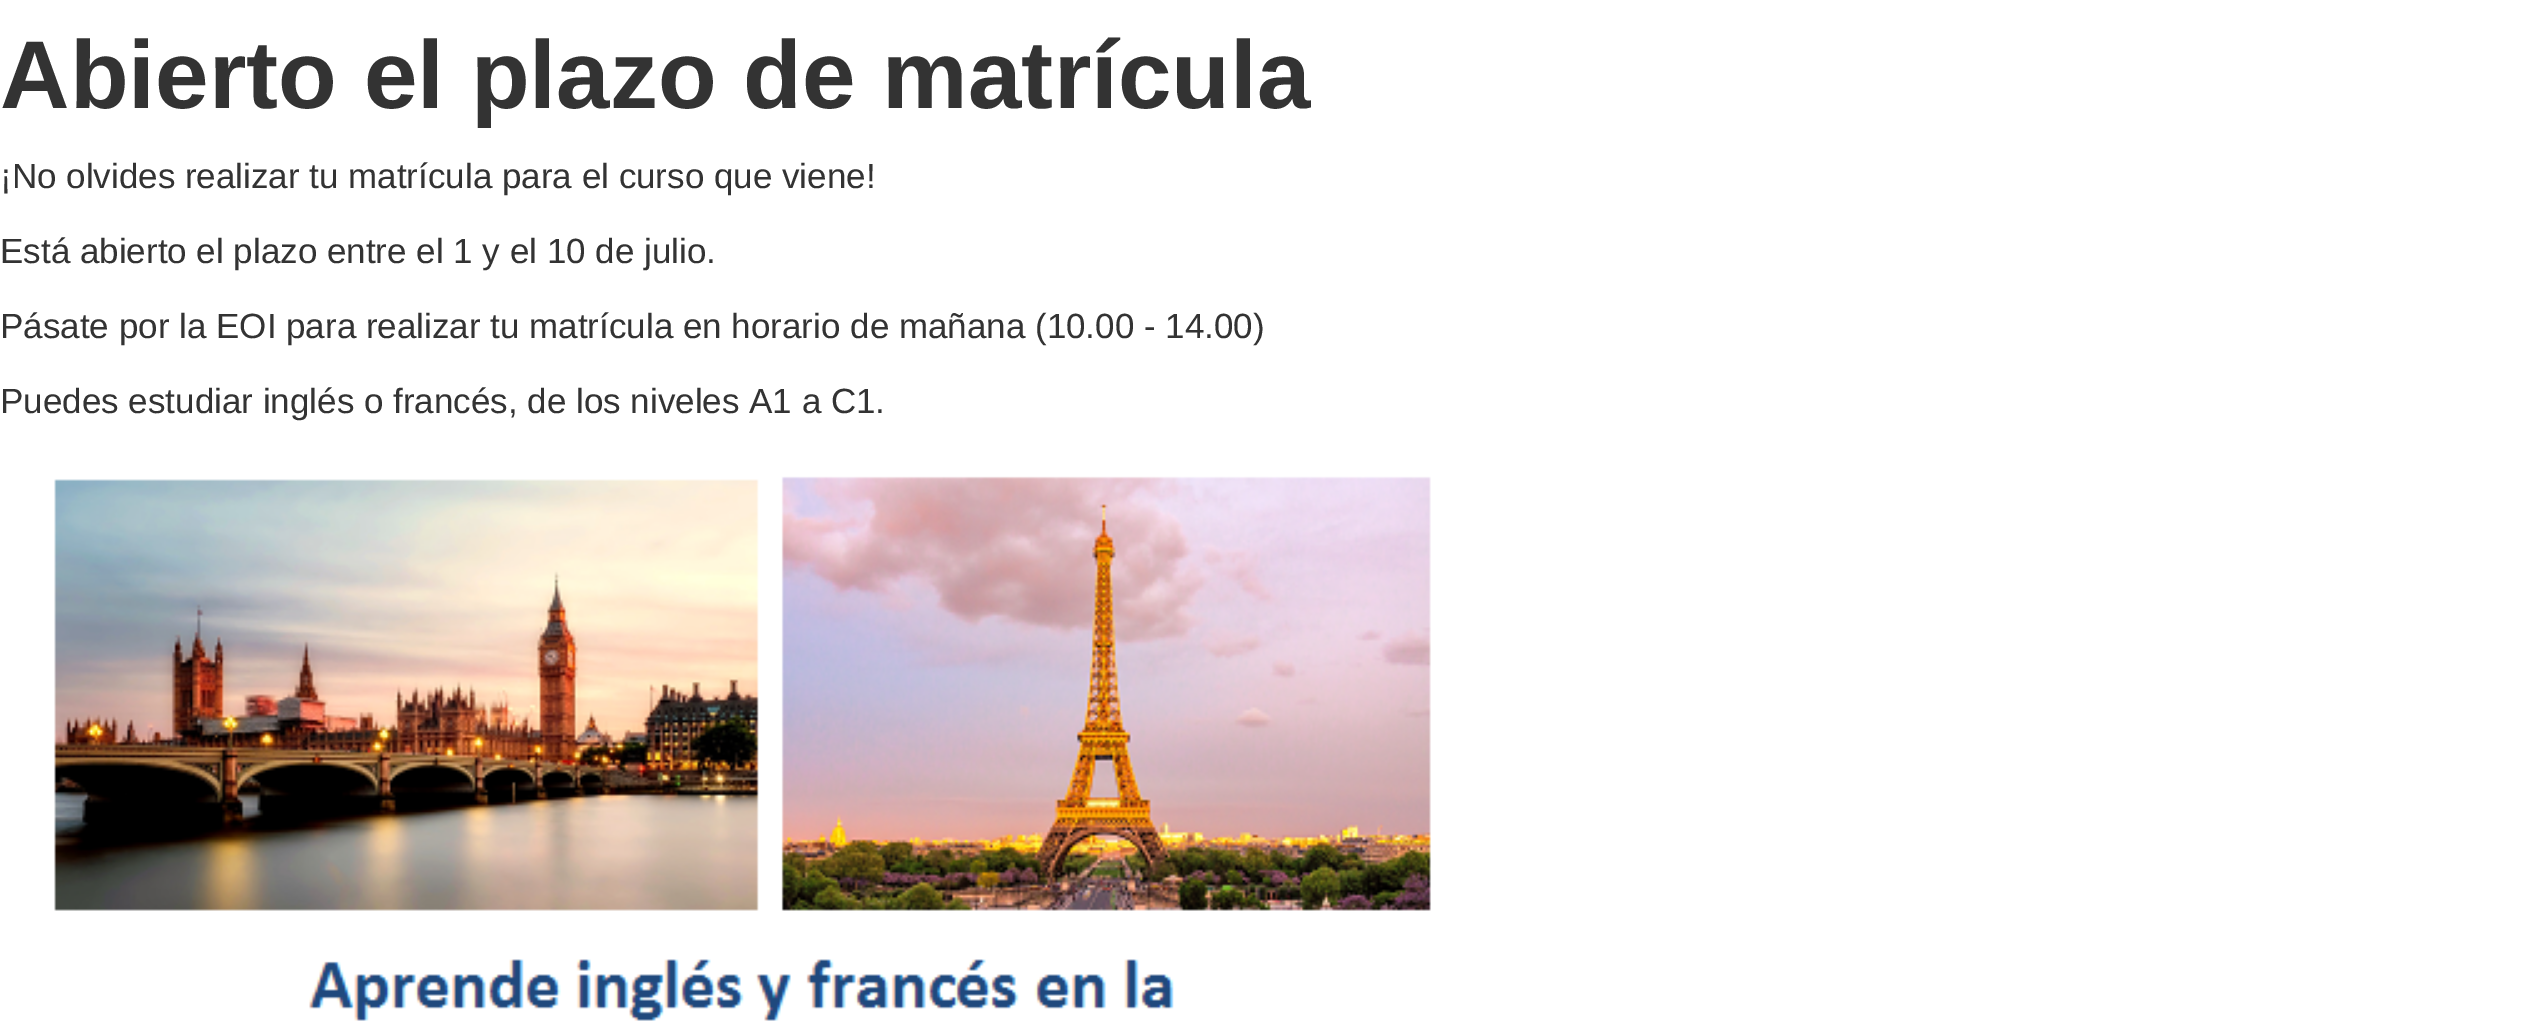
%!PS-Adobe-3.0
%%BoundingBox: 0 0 2522 1036
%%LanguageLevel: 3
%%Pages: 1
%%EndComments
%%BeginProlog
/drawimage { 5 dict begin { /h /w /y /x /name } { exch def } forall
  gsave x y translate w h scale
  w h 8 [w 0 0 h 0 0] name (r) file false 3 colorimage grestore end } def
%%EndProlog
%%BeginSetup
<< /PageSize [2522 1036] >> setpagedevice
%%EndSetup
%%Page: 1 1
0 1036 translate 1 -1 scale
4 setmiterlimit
1 setgray
0 0 2522 1036 rectfill
(images/1.raw) 54 476 1377 545 drawimage
/LiberationSans-Bold [96.25 0 0 -96.25 0 0] selectfont
0.2 setgray
0 108 moveto (Abierto el plazo de matrícula) show
/LiberationSans-Regular [35 0 0 -35 0 0] selectfont
0 188 moveto (¡No olvides realizar tu matrícula para el curso que viene!) show
0 263 moveto (Está abierto el plazo entre el 1 y el 10 de julio.) show
0 338 moveto (Pásate por la EOI para realizar tu matrícula en horario de mañana \(10.00 - 14.00\)) show
0 413 moveto (Puedes estudiar inglés o francés, de los niveles A1 a C1.) show
showpage
%%EOF
